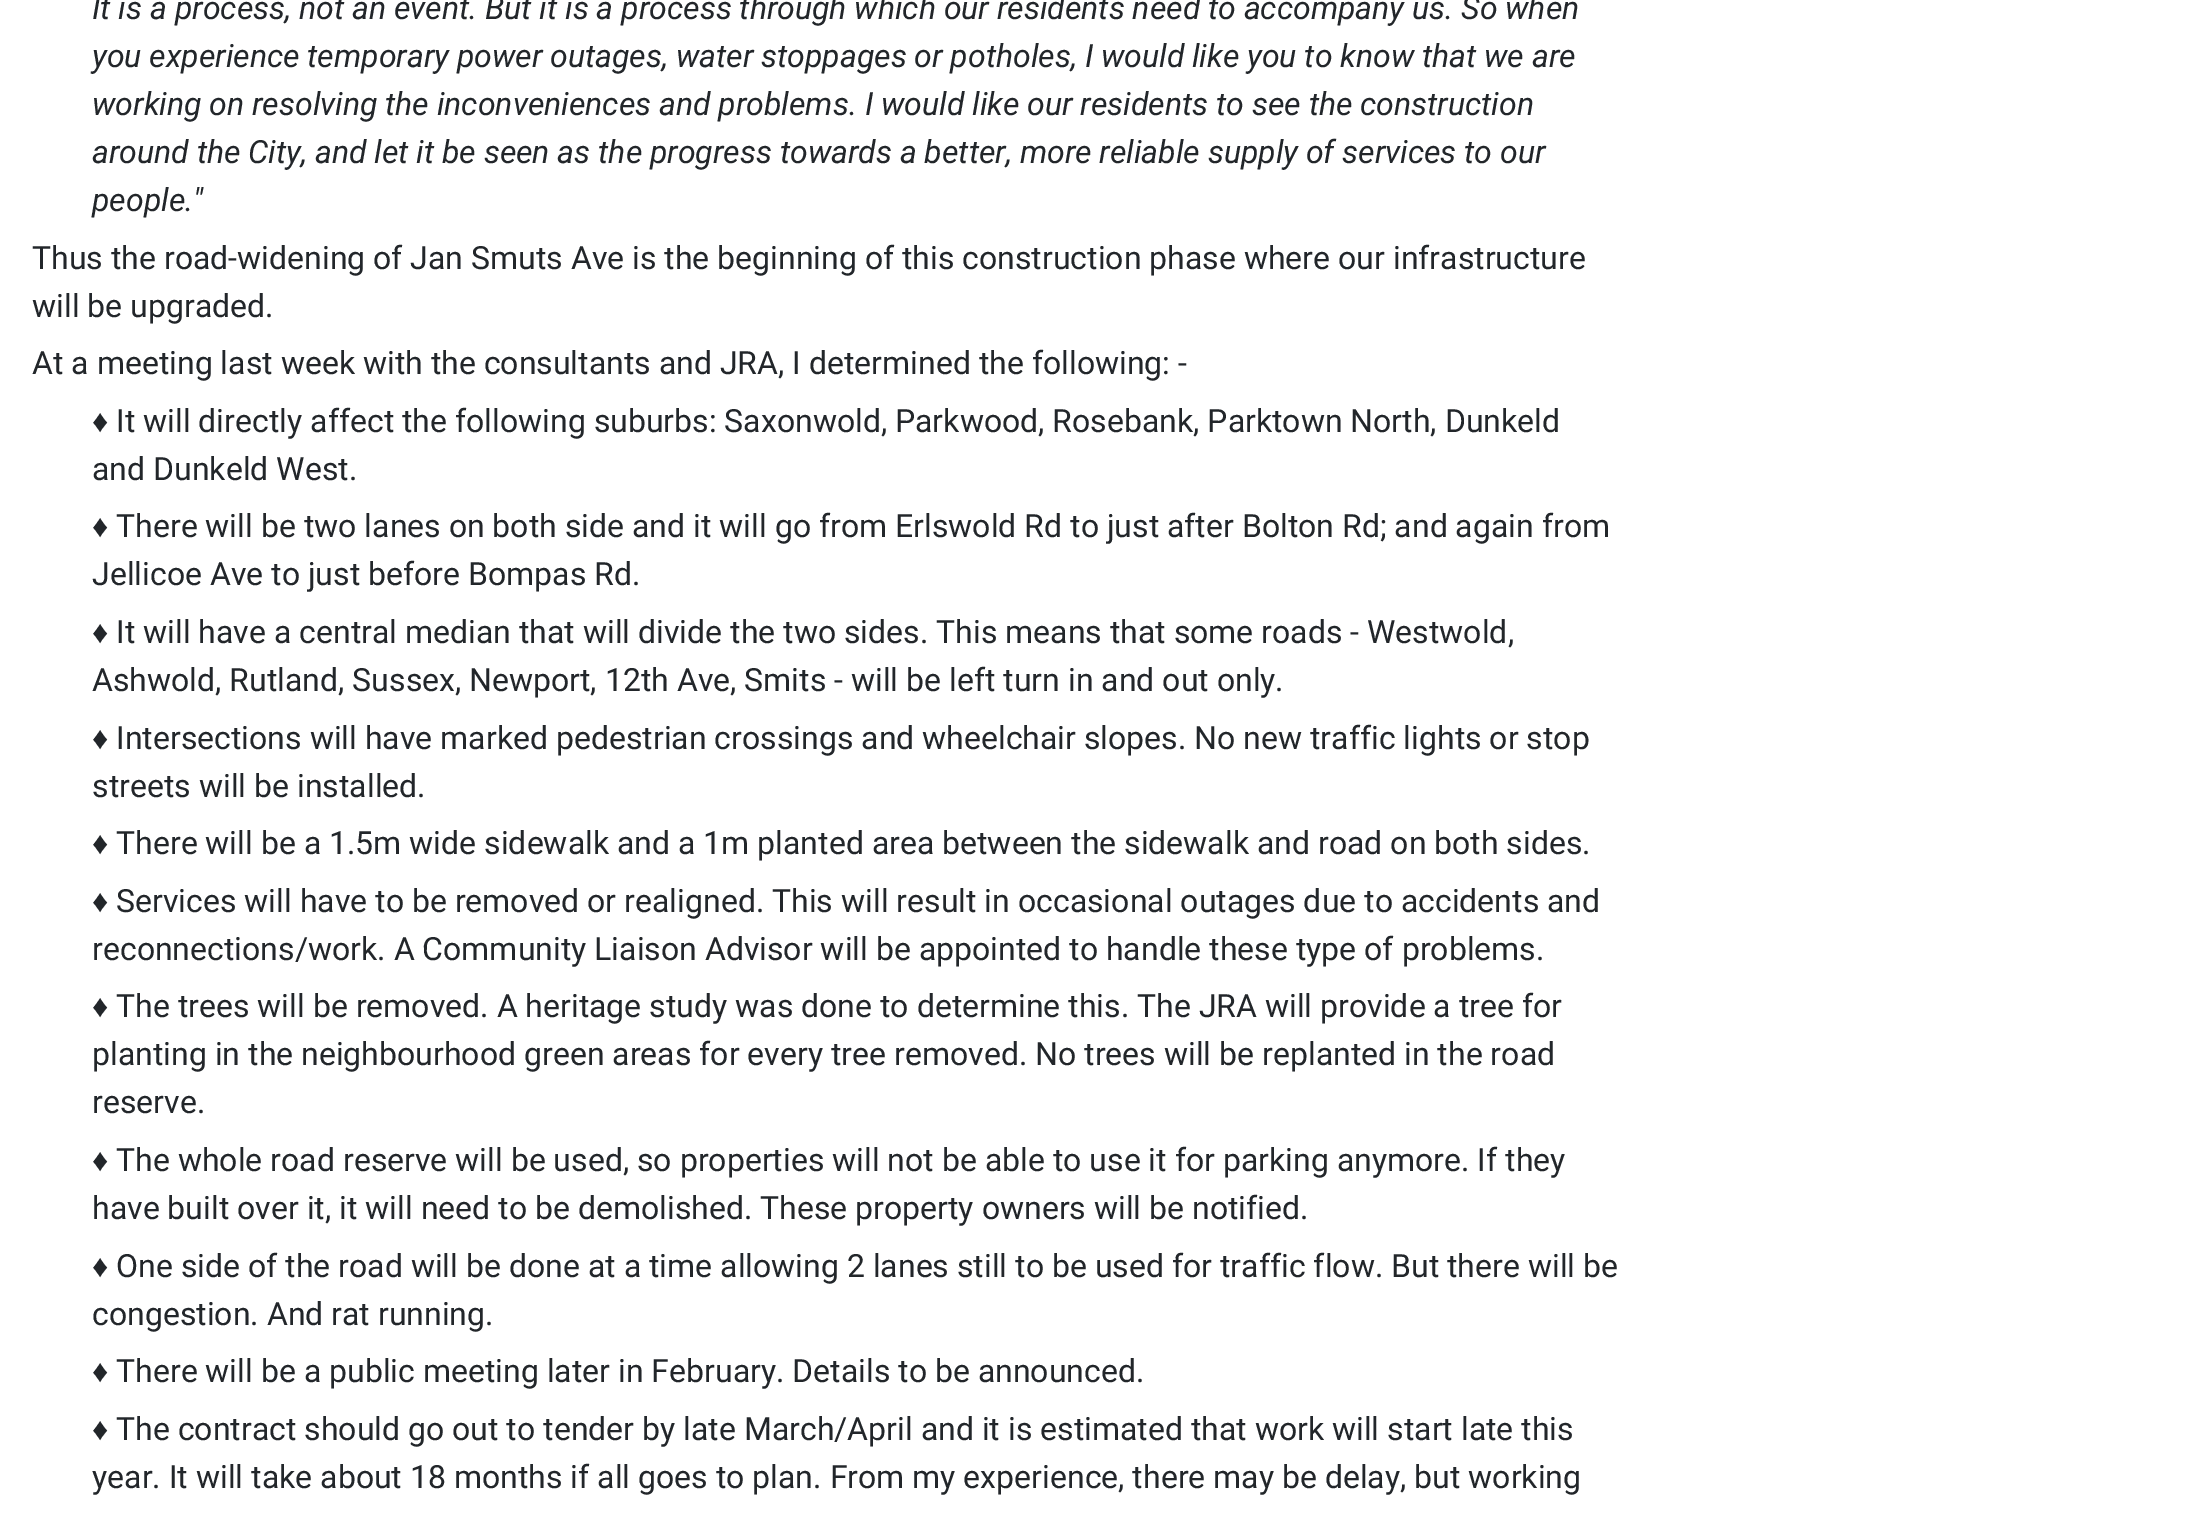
%!PS-Adobe-3.0
%%BoundingBox: 0 0 2190 1517
%%LanguageLevel: 3
%%Pages: 1
%%EndComments
%%BeginProlog
%%EndProlog
%%BeginSetup
<< /PageSize [2190 1517] >> setpagedevice
%%EndSetup
%%Page: 1 1
0 1517 translate 1 -1 scale
4 setmiterlimit
1 setgray
0 0 2190 1517 rectfill
/Roboto-Italic [32 0 0 -32 0 0] selectfont
0.133 0.149 0.165 setrgbcolor
92 19 moveto (It is a process, not an event. But it is a process through which our residents need to accompany us. So when) show
92 67 moveto (you experience temporary power outages, water stoppages or potholes, I would like you to know that we are) show
92 115 moveto (working on resolving the inconveniences and problems. I would like our residents to see the construction) show
92 163 moveto (around the City, and let it be seen as the progress towards a better, more reliable supply of services to our) show
92 211 moveto (people.") show
/Roboto-Regular [32 0 0 -32 0 0] selectfont
32 269 moveto (Thus the road-widening of Jan Smuts Ave is the beginning of this construction phase where our infrastructure) show
32 317 moveto (will be upgraded.) show
32 374 moveto (At a meeting last week with the consultants and JRA, I determined the following: -) show
/LiberationSans-Regular [32 0 0 -32 0 0] selectfont
92 432 moveto (♦) show
/Roboto-Regular [32 0 0 -32 0 0] selectfont
116 432 moveto (It will directly affect the following suburbs: Saxonwold, Parkwood, Rosebank, Parktown North, Dunkeld) show
92 480 moveto (and Dunkeld West.) show
/LiberationSans-Regular [32 0 0 -32 0 0] selectfont
92 537 moveto (♦) show
/Roboto-Regular [32 0 0 -32 0 0] selectfont
116 537 moveto (There will be two lanes on both side and it will go from Erlswold Rd to just after Bolton Rd; and again from) show
92 585 moveto (Jellicoe Ave to just before Bompas Rd.) show
/LiberationSans-Regular [32 0 0 -32 0 0] selectfont
92 643 moveto (♦) show
/Roboto-Regular [32 0 0 -32 0 0] selectfont
116 643 moveto (It will have a central median that will divide the two sides. This means that some roads - Westwold,) show
92 691 moveto (Ashwold, Rutland, Sussex, Newport, 12th Ave, Smits - will be left turn in and out only.) show
/LiberationSans-Regular [32 0 0 -32 0 0] selectfont
92 749 moveto (♦) show
/Roboto-Regular [32 0 0 -32 0 0] selectfont
116 749 moveto (Intersections will have marked pedestrian crossings and wheelchair slopes. No new traffic lights or stop) show
92 797 moveto (streets will be installed.) show
/LiberationSans-Regular [32 0 0 -32 0 0] selectfont
92 854 moveto (♦) show
/Roboto-Regular [32 0 0 -32 0 0] selectfont
116 854 moveto (There will be a 1.5m wide sidewalk and a 1m planted area between the sidewalk and road on both sides.) show
/LiberationSans-Regular [32 0 0 -32 0 0] selectfont
92 912 moveto (♦) show
/Roboto-Regular [32 0 0 -32 0 0] selectfont
116 912 moveto (Services will have to be removed or realigned. This will result in occasional outages due to accidents and) show
92 960 moveto (reconnections/work. A Community Liaison Advisor will be appointed to handle these type of problems.) show
/LiberationSans-Regular [32 0 0 -32 0 0] selectfont
92 1017 moveto (♦) show
/Roboto-Regular [32 0 0 -32 0 0] selectfont
116 1017 moveto (The trees will be removed. A heritage study was done to determine this. The JRA will provide a tree for) show
92 1065 moveto (planting in the neighbourhood green areas for every tree removed. No trees will be replanted in the road) show
92 1113 moveto (reserve.) show
/LiberationSans-Regular [32 0 0 -32 0 0] selectfont
92 1171 moveto (♦) show
/Roboto-Regular [32 0 0 -32 0 0] selectfont
116 1171 moveto (The whole road reserve will be used, so properties will not be able to use it for parking anymore. If they) show
92 1219 moveto (have built over it, it will need to be demolished. These property owners will be notified.) show
/LiberationSans-Regular [32 0 0 -32 0 0] selectfont
92 1277 moveto (♦) show
/Roboto-Regular [32 0 0 -32 0 0] selectfont
116 1277 moveto (One side of the road will be done at a time allowing 2 lanes still to be used for traffic flow. But there will be) show
92 1325 moveto (congestion. And rat running.) show
/LiberationSans-Regular [32 0 0 -32 0 0] selectfont
92 1382 moveto (♦) show
/Roboto-Regular [32 0 0 -32 0 0] selectfont
116 1382 moveto (There will be a public meeting later in February. Details to be announced.) show
/LiberationSans-Regular [32 0 0 -32 0 0] selectfont
92 1440 moveto (♦) show
/Roboto-Regular [32 0 0 -32 0 0] selectfont
116 1440 moveto (The contract should go out to tender by late March/April and it is estimated that work will start late this) show
92 1488 moveto (year. It will take about 18 months if all goes to plan. From my experience, there may be delay, but working) show
showpage
%%EOF
